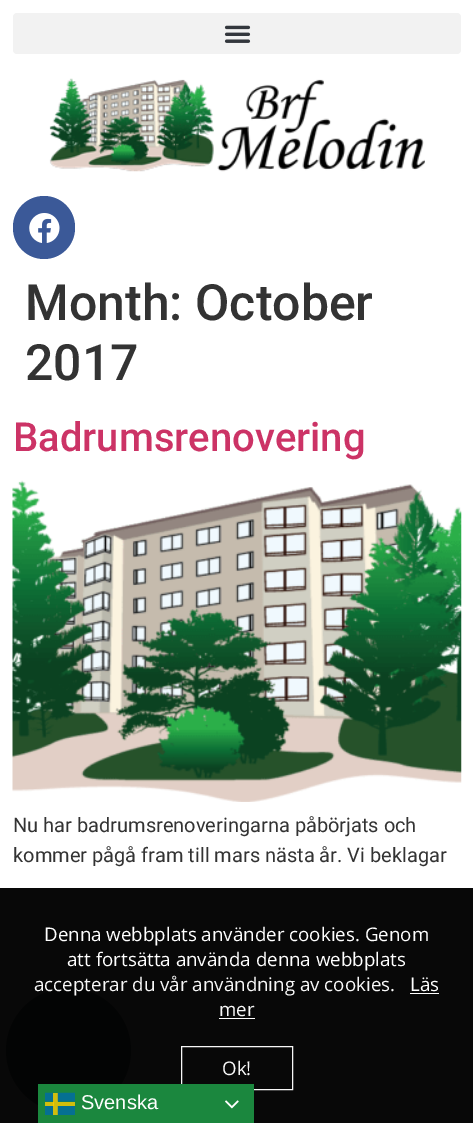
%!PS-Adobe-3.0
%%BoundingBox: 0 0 473 1123
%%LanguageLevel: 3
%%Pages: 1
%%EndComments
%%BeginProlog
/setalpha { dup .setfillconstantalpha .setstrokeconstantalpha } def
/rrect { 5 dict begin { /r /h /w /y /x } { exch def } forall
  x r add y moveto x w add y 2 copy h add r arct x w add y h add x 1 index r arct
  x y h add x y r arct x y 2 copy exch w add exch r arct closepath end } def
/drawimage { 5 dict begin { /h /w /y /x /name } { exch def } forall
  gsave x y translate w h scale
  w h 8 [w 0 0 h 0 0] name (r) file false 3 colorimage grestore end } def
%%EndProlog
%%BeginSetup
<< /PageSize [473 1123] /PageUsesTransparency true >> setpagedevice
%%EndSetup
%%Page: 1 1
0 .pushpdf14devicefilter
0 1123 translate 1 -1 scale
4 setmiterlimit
1 setgray
0 0 473 1123 rectfill
0.949 setgray
13 13 448 41 4 rrect fill
(images/1.raw) 224 25 27 18 drawimage
(images/2.raw) 49 78 376 94 drawimage
0.231 0.349 0.596 setrgbcolor
13 196 62 63 31 rrect fill
(images/3.raw) 29 213 31 30 drawimage
(images/4.raw) 12 480 450 322 drawimage
0.412 0.447 0.49 setrgbcolor
newpath 68.5 1050.5 62.5 0 360 arc closepath fill
0.97 setalpha
0 setgray
0 888 473 235 rectfill
1 setalpha
1 setgray
410 993 29 1 rectfill
219 1018 36 1 rectfill
0.97 setalpha
181.5 1046.5 111 43 rectstroke
1 setalpha
0.106 0.529 0.243 setrgbcolor
38 1084 216 39 rectfill
(images/5.raw) 45 1092 30 23 drawimage
(images/6.raw) 225 1100 14 9 drawimage
/Roboto-Medium [50 0 0 -50 0 0] selectfont
0.2 setgray
25 320 moveto (Month: October) show
25 380 moveto (2017) show
/Roboto-Medium [40 0 0 -40 0 0] selectfont
0.8 0.2 0.4 setrgbcolor
13 451 moveto (Badrumsrenovering) show
/Roboto-Regular [20 0 0 -20 0 0] selectfont
0.2 setgray
13 832 moveto (Nu har badrumsrenoveringarna påbörjats och) show
13 862 moveto (kommer pågå fram till mars nästa år. Vi beklagar) show
/OpenSans-Regular [18.75 0 0 -18.75 0 0] selectfont
1 setgray
44 941 moveto (Denna webbplats använder cookies. Genom) show
67 966 moveto (att fortsätta använda denna webbplats) show
0.973 setgray
34 991 moveto (accepterar du vår användning av cookies.) show
1 setgray
410 991 moveto (Läs) show
0.973 setgray
219 1016 moveto (mer) show
222 1075 moveto (Ok!) show
/LiberationSans-Regular [20 0 0 -20 0 0] selectfont
1 setgray
81 1109 moveto (Svenska) show
.poppdf14devicefilter showpage
%%EOF
